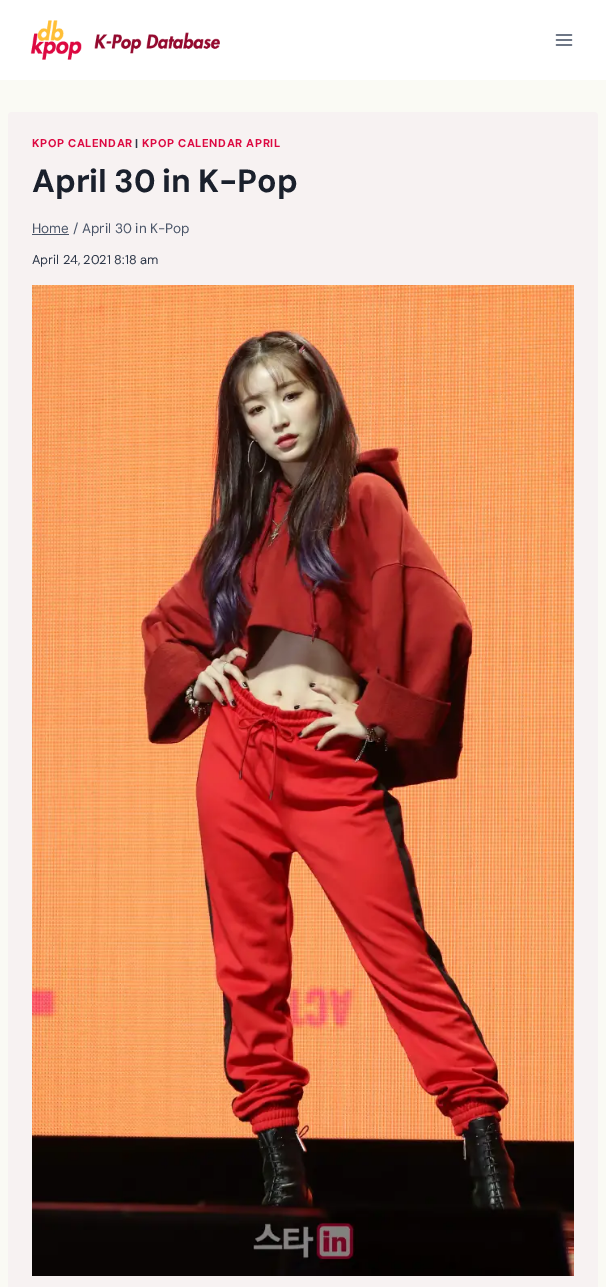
%!PS-Adobe-3.0
%%BoundingBox: 0 0 606 1287
%%LanguageLevel: 3
%%Pages: 1
%%EndComments
%%BeginProlog
/rrect { 5 dict begin { /r /h /w /y /x } { exch def } forall
  x r add y moveto x w add y 2 copy h add r arct x w add y h add x 1 index r arct
  x y h add x y r arct x y 2 copy exch w add exch r arct closepath end } def
/drawimage { 5 dict begin { /h /w /y /x /name } { exch def } forall
  gsave x y translate w h scale
  w h 8 [w 0 0 h 0 0] name (r) file false 3 colorimage grestore end } def
%%EndProlog
%%BeginSetup
<< /PageSize [606 1287] >> setpagedevice
%%EndSetup
%%Page: 1 1
0 1287 translate 1 -1 scale
4 setmiterlimit
0.98 0.98 0.957 setrgbcolor
0 0 606 1287 rectfill
1 setgray
0 0 606 80 rectfill
(images/1.raw) 30 20 190 40 drawimage
(images/2.raw) 555 34 18 12 drawimage
0.969 0.949 0.949 setrgbcolor
8 112 590 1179 4 rrect fill
0.29 0.333 0.408 setrgbcolor
32 234 37 1 rectfill
(images/3.raw) 32 285 542 991 drawimage
/DMSans-Bold [11.25 0 0 -11.25 0 0] selectfont
0.867 0.031 0.255 setrgbcolor
32 147 moveto 0.6 0 (KPOP CALENDAR) ashow
/DMSans-SemiBold [11.25 0 0 -11.25 0 0] selectfont
0.176 0.216 0.282 setrgbcolor
135 147 moveto 0.6 0 (|) ashow
/DMSans-Bold [11.25 0 0 -11.25 0 0] selectfont
0.867 0.031 0.255 setrgbcolor
142 147 moveto 0.6 0 (KPOP CALENDAR APRIL) ashow
/DMSans-Bold [32 0 0 -32 0 0] selectfont
0.102 0.125 0.173 setrgbcolor
32 192 moveto -1 0 32 (April 30 in K-Pop) widthshow
/DMSans-Regular [13.6 0 0 -13.6 0 0] selectfont
0.29 0.333 0.408 setrgbcolor
32 233 moveto (Home / April 30 in K-Pop) show
/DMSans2-Regular [12.75 0 0 -12.75 0 0] selectfont
0.176 0.216 0.282 setrgbcolor
32 264 moveto (April 24, 2021 8:18 am) show
showpage
%%EOF
